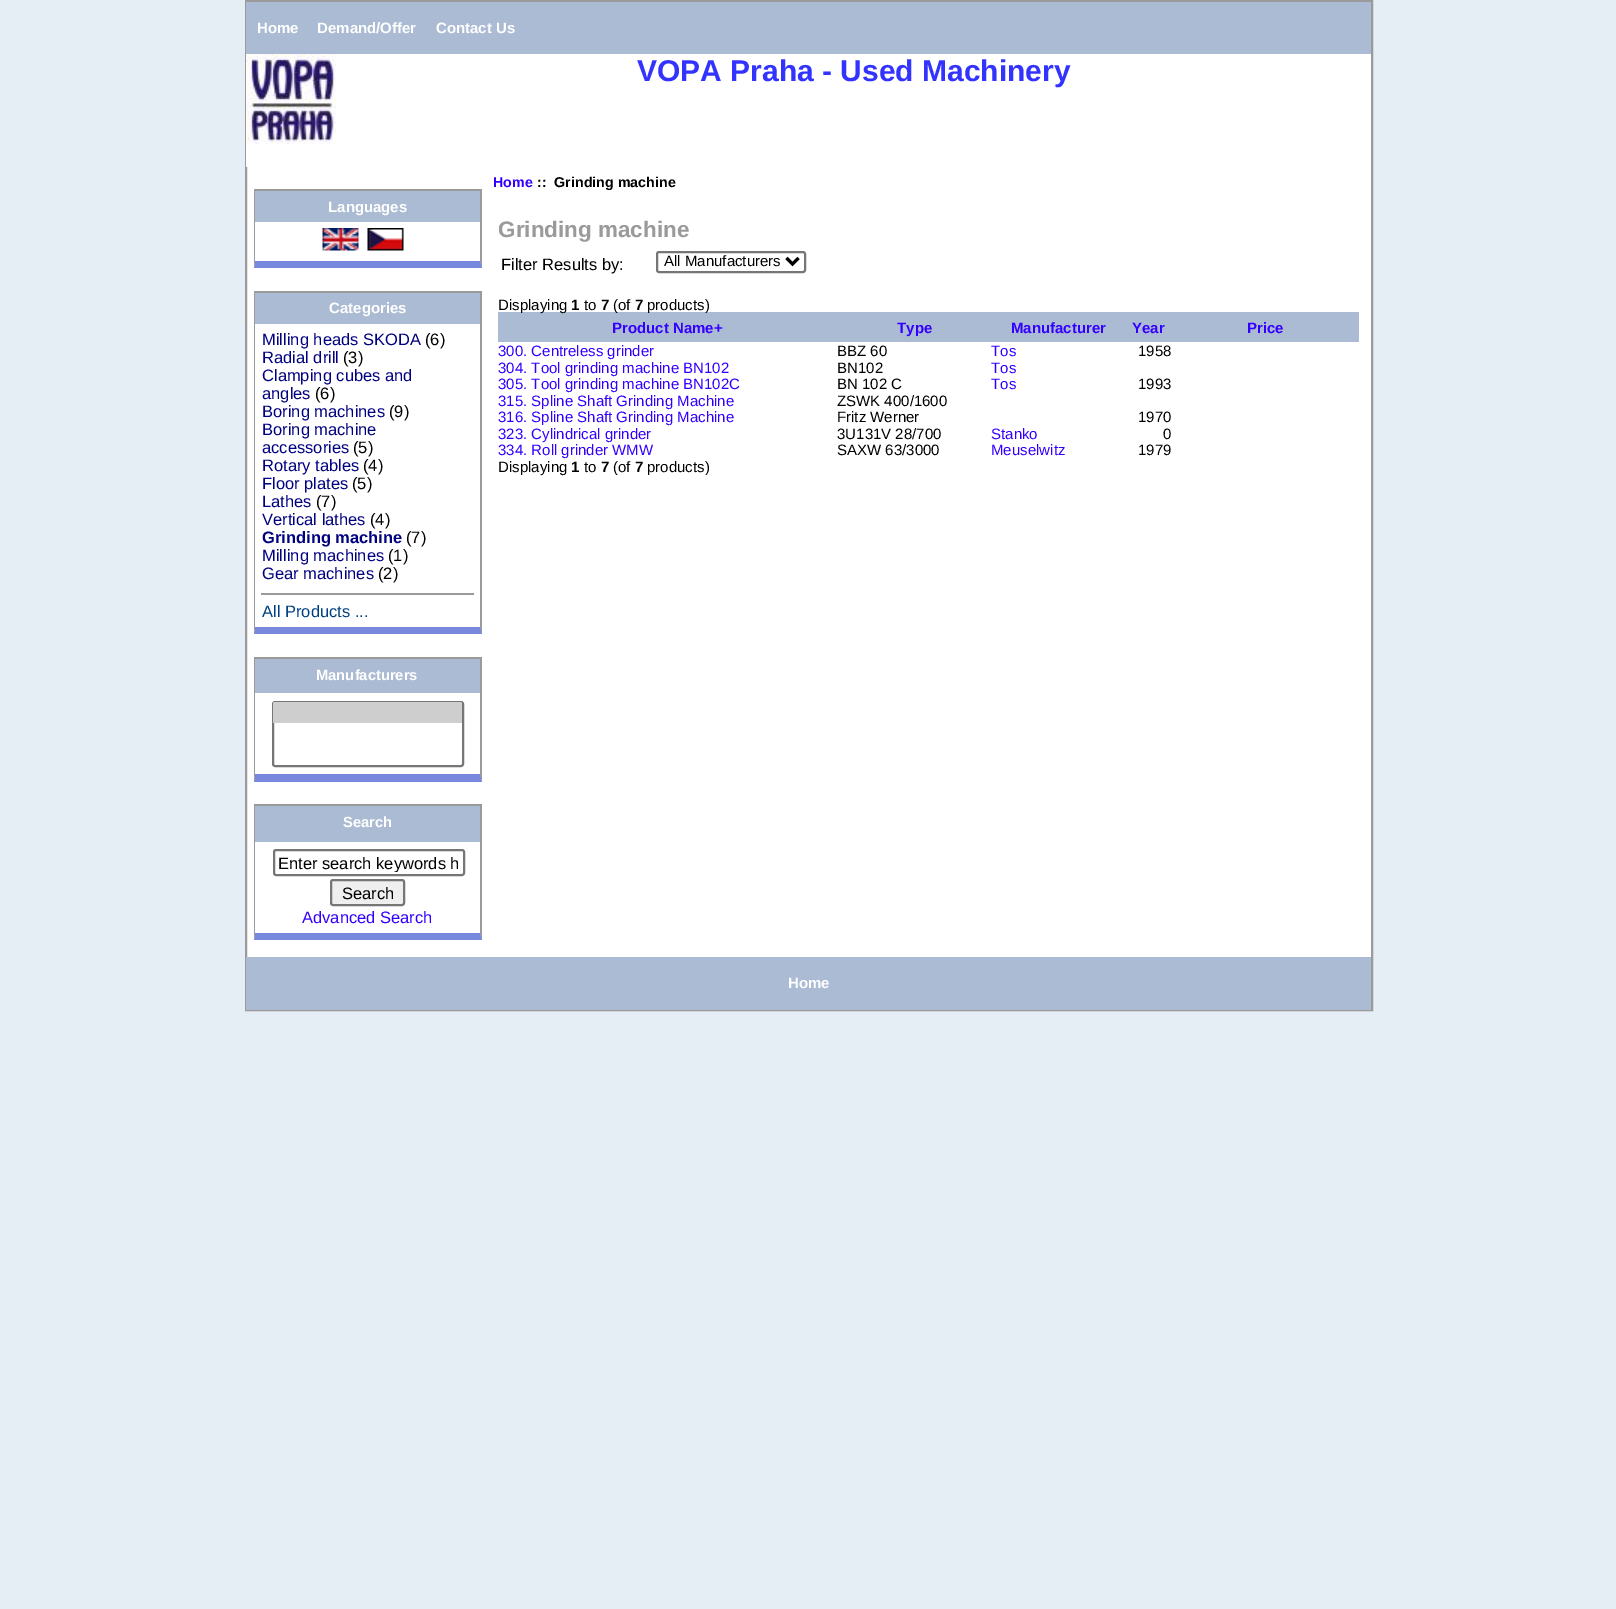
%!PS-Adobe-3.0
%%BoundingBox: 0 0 1616 1609
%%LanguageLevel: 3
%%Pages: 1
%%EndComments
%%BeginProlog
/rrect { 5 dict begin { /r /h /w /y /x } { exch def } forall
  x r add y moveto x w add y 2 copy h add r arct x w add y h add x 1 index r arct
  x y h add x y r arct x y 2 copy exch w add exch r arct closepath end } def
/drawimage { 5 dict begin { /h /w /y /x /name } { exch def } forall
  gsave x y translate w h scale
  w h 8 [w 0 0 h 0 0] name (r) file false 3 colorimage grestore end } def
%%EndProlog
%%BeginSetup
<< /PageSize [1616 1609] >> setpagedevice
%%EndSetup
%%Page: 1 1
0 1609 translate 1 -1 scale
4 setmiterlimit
0.898 0.929 0.961 setrgbcolor
0 0 1616 1609 rectfill
1 setgray
247 167 1124 790 rectfill
0.604 setgray
2 setlinewidth
246 1 1126 1009 rectstroke
0.671 0.733 0.827 setrgbcolor
246 2 1125 52 rectfill
1 setgray
246 54 1125 113 rectfill
(images/1.raw) 246 54 90 90 drawimage
0.604 setgray
254 189 228 2 rectfill
newpath 482 189 moveto 482 268 lineto 480 261 lineto 480 190 lineto closepath fill
0.471 0.533 0.867 setrgbcolor
newpath 482 268 moveto 254 268 lineto 255 261 lineto 480 261 lineto closepath fill
0.604 setgray
newpath 254 268 moveto 254 189 lineto 255 190 lineto 255 261 lineto closepath fill
0.671 0.733 0.827 setrgbcolor
255 191 225 31 rectfill
(images/2.raw) 322 228 37 23 drawimage
(images/3.raw) 367 228 37 23 drawimage
0.604 setgray
254 291 228 2 rectfill
newpath 482 291 moveto 482 634 lineto 480 627 lineto 480 292 lineto closepath fill
0.471 0.533 0.867 setrgbcolor
newpath 482 634 moveto 254 634 lineto 255 627 lineto 480 627 lineto closepath fill
0.604 setgray
newpath 254 634 moveto 254 291 lineto 255 292 lineto 255 627 lineto closepath fill
0.671 0.733 0.827 setrgbcolor
255 293 225 31 rectfill
0.604 setgray
261 593 213 2 rectfill
254 657 228 2 rectfill
newpath 482 657 moveto 482 782 lineto 480 774 lineto 480 658 lineto closepath fill
0.471 0.533 0.867 setrgbcolor
newpath 482 782 moveto 254 782 lineto 255 774 lineto 480 774 lineto closepath fill
0.604 setgray
newpath 254 782 moveto 254 657 lineto 255 658 lineto 255 774 lineto closepath fill
0.671 0.733 0.827 setrgbcolor
255 659 225 34 rectfill
0.463 setgray
273 702 190 64 2 rrect stroke
0.808 setgray
newpath 274.5 702 moveto 460.5 702 lineto 461.5 702 462 702.5 462 703.5 curveto 462 723 lineto 273 723 lineto 273 703.5 lineto 273 702.5 273.5 702 274.5 702 curveto closepath fill
0.604 setgray
254 804 228 2 rectfill
newpath 482 804 moveto 482 940 lineto 480 933 lineto 480 806 lineto closepath fill
0.471 0.533 0.867 setrgbcolor
newpath 482 940 moveto 254 940 lineto 255 933 lineto 480 933 lineto closepath fill
0.604 setgray
newpath 254 940 moveto 254 804 lineto 255 806 lineto 255 933 lineto closepath fill
0.671 0.733 0.827 setrgbcolor
255 806 225 36 rectfill
0.463 setgray
274 850 190 25 2 rrect stroke
0.937 setgray
331 880 73 25 2 rrect gsave fill grestore
0.463 setgray
stroke
657 252 148 20 2 rrect stroke
0 setgray
3 setlinewidth
newpath 786.5 258 moveto 792.5 264 lineto 798.5 258 lineto stroke
0.671 0.733 0.827 setrgbcolor
498 312 861 30 rectfill
246 957 1125 53 rectfill
/LiberationSans-Bold [15 0 0 -15 0 0] selectfont
1 setgray
257 33 moveto (Home) show
317 33 moveto (Demand/Offer) show
436 33 moveto (Contact Us) show
/LiberationSans-Bold [30 0 0 -30 0 0] selectfont
0.2 0.2 1 setrgbcolor
637 81 moveto (VOPA Praha - Used Machinery) show
/LiberationSans-Bold [15 0 0 -15 0 0] selectfont
1 setgray
328 212 moveto (Languages) show
329 313 moveto (Categories) show
/LiberationSans-Regular [16.5 0 0 -16.5 0 0] selectfont
0 0 0.502 setrgbcolor
262 345 moveto (Milling heads SKODA) show
0 setgray
425 345 moveto (\(6\)) show
0 0 0.502 setrgbcolor
262 363 moveto (Radial drill) show
0 setgray
343 363 moveto (\(3\)) show
0 0 0.502 setrgbcolor
262 381 moveto (Clamping cubes and) show
262 399 moveto (angles) show
0 setgray
315 399 moveto (\(6\)) show
0 0 0.502 setrgbcolor
262 417 moveto (Boring machines) show
0 setgray
389 417 moveto (\(9\)) show
0 0 0.502 setrgbcolor
262 435 moveto (Boring machine) show
262 453 moveto (accessories) show
0 setgray
353 453 moveto (\(5\)) show
0 0 0.502 setrgbcolor
262 471 moveto (Rotary tables) show
0 setgray
363 471 moveto (\(4\)) show
0 0 0.502 setrgbcolor
262 489 moveto (Floor plates) show
0 setgray
352 489 moveto (\(5\)) show
0 0 0.502 setrgbcolor
262 507 moveto (Lathes) show
0 setgray
316 507 moveto (\(7\)) show
0 0 0.502 setrgbcolor
262 525 moveto (Vertical lathes) show
0 setgray
370 525 moveto (\(4\)) show
/LiberationSans-Bold [16.5 0 0 -16.5 0 0] selectfont
0 0 0.502 setrgbcolor
262 543 moveto (Grinding machine) show
/LiberationSans-Regular [16.5 0 0 -16.5 0 0] selectfont
0 setgray
406 543 moveto (\(7\)) show
0 0 0.502 setrgbcolor
262 561 moveto (Milling machines) show
0 setgray
388 561 moveto (\(1\)) show
0 0 0.502 setrgbcolor
262 579 moveto (Gear machines) show
0 setgray
378 579 moveto (\(2\)) show
0 0.251 0.502 setrgbcolor
262 617 moveto (All Products ...) show
/LiberationSans-Bold [14.75 0 0 -14.75 0 0] selectfont
1 setgray
316 680 moveto (Manufacturers) show
343 827 moveto (Search) show
gsave
279 854 180 18 rectclip
/LiberationSans-Regular [16.5 0 0 -16.5 0 0] selectfont
0 setgray
278 869 moveto (Enter search keywords h) show
grestore
/LiberationSans-Regular [16.5 0 0 -16.5 0 0] selectfont
0 setgray
342 899 moveto (Search) show
0.2 0 1 setrgbcolor
302 923 moveto (Advanced Search) show
/LiberationSans-Bold [14.25 0 0 -14.25 0 0] selectfont
493 187 moveto (Home) show
0 setgray
537 187 moveto (::  Grinding machine) show
/LiberationSans-Bold [22.5 0 0 -22.5 0 0] selectfont
0.604 setgray
498 237 moveto (Grinding machine) show
/LiberationSans-Regular [16.5 0 0 -16.5 0 0] selectfont
0 setgray
501 270 moveto (Filter Results by:) show
/LiberationSans-Regular [15 0 0 -15 0 0] selectfont
664 266 moveto (All Manufacturers) show
498 310 moveto (Displaying) show
/LiberationSans-Bold [15 0 0 -15 0 0] selectfont
571 310 moveto (1) show
/LiberationSans-Regular [15 0 0 -15 0 0] selectfont
584 310 moveto (to) show
/LiberationSans-Bold [15 0 0 -15 0 0] selectfont
601 310 moveto (7) show
/LiberationSans-Regular [15 0 0 -15 0 0] selectfont
613 310 moveto (\(of) show
/LiberationSans-Bold [15 0 0 -15 0 0] selectfont
635 310 moveto (7) show
/LiberationSans-Regular [15 0 0 -15 0 0] selectfont
647 310 moveto (products\)) show
/LiberationSans-Bold [15 0 0 -15 0 0] selectfont
0.2 0 1 setrgbcolor
612 333 moveto (Product Name+) show
897 333 moveto (Type) show
1011 333 moveto (Manufacturer) show
1132 333 moveto (Year) show
1247 333 moveto (Price) show
/LiberationSans-Regular [15 0 0 -15 0 0] selectfont
498 356 moveto (300. Centreless grinder) show
0 setgray
837 356 moveto (BBZ 60) show
0.2 0 1 setrgbcolor
991 356 moveto (Tos) show
0 setgray
1138 356 moveto (1958) show
0.2 0 1 setrgbcolor
498 373 moveto (304. Tool grinding machine BN102) show
0 setgray
837 373 moveto (BN102) show
0.2 0 1 setrgbcolor
991 373 moveto (Tos) show
498 389 moveto (305. Tool grinding machine BN102C) show
0 setgray
837 389 moveto (BN 102 C) show
0.2 0 1 setrgbcolor
991 389 moveto (Tos) show
0 setgray
1138 389 moveto (1993) show
0.2 0 1 setrgbcolor
498 406 moveto (315. Spline Shaft Grinding Machine) show
0 setgray
837 406 moveto (ZSWK 400/1600) show
0.2 0 1 setrgbcolor
498 422 moveto (316. Spline Shaft Grinding Machine) show
0 setgray
837 422 moveto (Fritz Werner) show
1138 422 moveto (1970) show
0.2 0 1 setrgbcolor
498 439 moveto (323. Cylindrical grinder) show
0 setgray
837 439 moveto (3U131V 28/700) show
0.2 0 1 setrgbcolor
991 439 moveto (Stanko) show
0 setgray
1163 439 moveto (0) show
0.2 0 1 setrgbcolor
498 455 moveto (334. Roll grinder WMW) show
0 setgray
837 455 moveto (SAXW 63/3000) show
0.2 0 1 setrgbcolor
991 455 moveto (Meuselwitz) show
0 setgray
1138 455 moveto (1979) show
498 472 moveto (Displaying) show
/LiberationSans-Bold [15 0 0 -15 0 0] selectfont
571 472 moveto (1) show
/LiberationSans-Regular [15 0 0 -15 0 0] selectfont
584 472 moveto (to) show
/LiberationSans-Bold [15 0 0 -15 0 0] selectfont
601 472 moveto (7) show
/LiberationSans-Regular [15 0 0 -15 0 0] selectfont
613 472 moveto (\(of) show
/LiberationSans-Bold [15 0 0 -15 0 0] selectfont
635 472 moveto (7) show
/LiberationSans-Regular [15 0 0 -15 0 0] selectfont
647 472 moveto (products\)) show
/LiberationSans-Bold [15 0 0 -15 0 0] selectfont
1 setgray
788 988 moveto (Home) show
showpage
%%EOF
